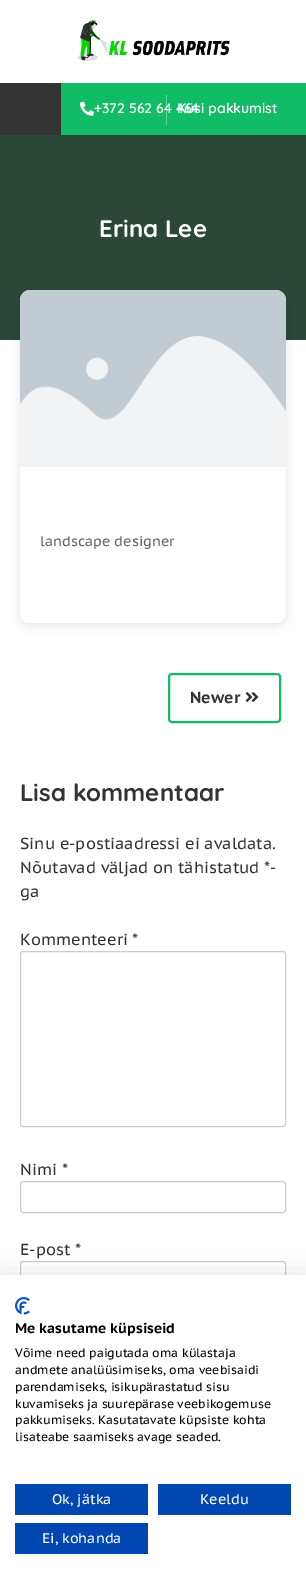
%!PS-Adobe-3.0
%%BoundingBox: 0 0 306 1581
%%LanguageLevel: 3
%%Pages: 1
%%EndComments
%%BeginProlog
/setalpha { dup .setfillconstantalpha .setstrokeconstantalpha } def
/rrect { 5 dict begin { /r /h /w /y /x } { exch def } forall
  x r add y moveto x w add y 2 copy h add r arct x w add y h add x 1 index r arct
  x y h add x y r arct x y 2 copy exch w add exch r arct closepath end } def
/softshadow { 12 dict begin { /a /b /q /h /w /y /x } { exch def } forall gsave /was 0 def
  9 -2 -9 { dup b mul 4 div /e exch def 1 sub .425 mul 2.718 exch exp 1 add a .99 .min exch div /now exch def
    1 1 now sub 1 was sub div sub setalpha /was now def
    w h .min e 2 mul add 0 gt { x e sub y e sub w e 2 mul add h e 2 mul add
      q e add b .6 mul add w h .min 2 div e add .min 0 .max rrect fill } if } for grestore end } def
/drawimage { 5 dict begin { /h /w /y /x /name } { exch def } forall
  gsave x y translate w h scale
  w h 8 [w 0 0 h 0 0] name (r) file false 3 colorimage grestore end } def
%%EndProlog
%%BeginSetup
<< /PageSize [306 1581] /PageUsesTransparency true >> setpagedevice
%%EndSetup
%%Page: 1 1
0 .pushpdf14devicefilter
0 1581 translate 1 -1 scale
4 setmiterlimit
1 setgray
0 0 306 1581 rectfill
(images/1.raw) 77 20 153 41 drawimage
0.2 setgray
0 83 61 52 rectfill
0.071 0.737 0.4 setrgbcolor
61 83 245 52 rectfill
(images/2.raw) 80 101 14 15 drawimage
0.396 0.827 0.612 setrgbcolor
166 95 1 30 rectfill
0.165 0.278 0.22 setrgbcolor
0 135 306 205 rectfill
0 setgray
20 293 266 333 10 5 0.1 softshadow
1 setgray
20 290 266 333 10 rrect fill
(images/3.raw) 20 290 266 177 drawimage
0.071 0.737 0.4 setrgbcolor
2 setlinewidth
169 674 111 48 3 rrect stroke
(images/4.raw) 245 692 14 10 drawimage
0.8 setgray
1 setlinewidth
20.5 951.5 265 175 2.5 rrect stroke
20.5 1181.5 265 31 2.5 rrect stroke
20.5 1261.5 265 31 2.5 rrect stroke
0 setgray
0 1275 306 306 0 12 0.1 softshadow
1 setgray
0 1275 306 306 rectfill
(images/5.raw) 15 1297 15 18 drawimage
0 0.278 0.698 setrgbcolor
15 1484 133 31 rectfill
158 1484 133 31 rectfill
15 1523 133 31 rectfill
/Quicksand-SemiBold [14 0 0 -14 0 0] selectfont
1 setgray
177 113 moveto (Küsi pakkumist) show
94 113 moveto (+372 562 64 464) show
/Quicksand-Bold [24 0 0 -24 0 0] selectfont
99 237 moveto (Erina Lee) show
/PTSansCaption-Regular [14 0 0 -14 0 0] selectfont
0.392 setgray
40 546 moveto (landscape designer) show
/PTSansCaption-Bold [16 0 0 -16 0 0] selectfont
0.2 setgray
190 703 moveto (Newer) show
/Quicksand-Bold [24 0 0 -24 0 0] selectfont
20 801 moveto (Lisa kommentaar) show
/PTSansCaption-Regular [16 0 0 -16 0 0] selectfont
20 849 moveto (Sinu e-postiaadressi ei avaldata.) show
20 873 moveto (Nõutavad väljad on tähistatud *-) show
20 897 moveto (ga) show
20 945 moveto (Kommenteeri *) show
20 1175 moveto (Nimi *) show
20 1255 moveto (E-post *) show
/PTSansCaption-Bold [14 0 0 -14 0 0] selectfont
0 setgray
15 1333 moveto (Me kasutame küpsiseid) show
/PTSansCaption-Regular [12 0 0 -12 0 0] selectfont
15 1357 moveto (Võime need paigutada oma külastaja) show
15 1374 moveto (andmete analüüsimiseks, oma veebisaidi) show
15 1391 moveto (parendamiseks, isikupärastatud sisu) show
15 1408 moveto (kuvamiseks ja suurepärase veebikogemuse) show
15 1424 moveto (pakkumiseks. Kasutatavate küpsiste kohta) show
15 1441 moveto (lisateabe saamiseks avage seaded.) show
/PTSansCaption-Regular [14 0 0 -14 0 0] selectfont
1 setgray
52 1504 moveto (Ok, jätka) show
200 1504 moveto (Keeldu) show
42 1543 moveto (Ei, kohanda) show
.poppdf14devicefilter showpage
%%EOF
